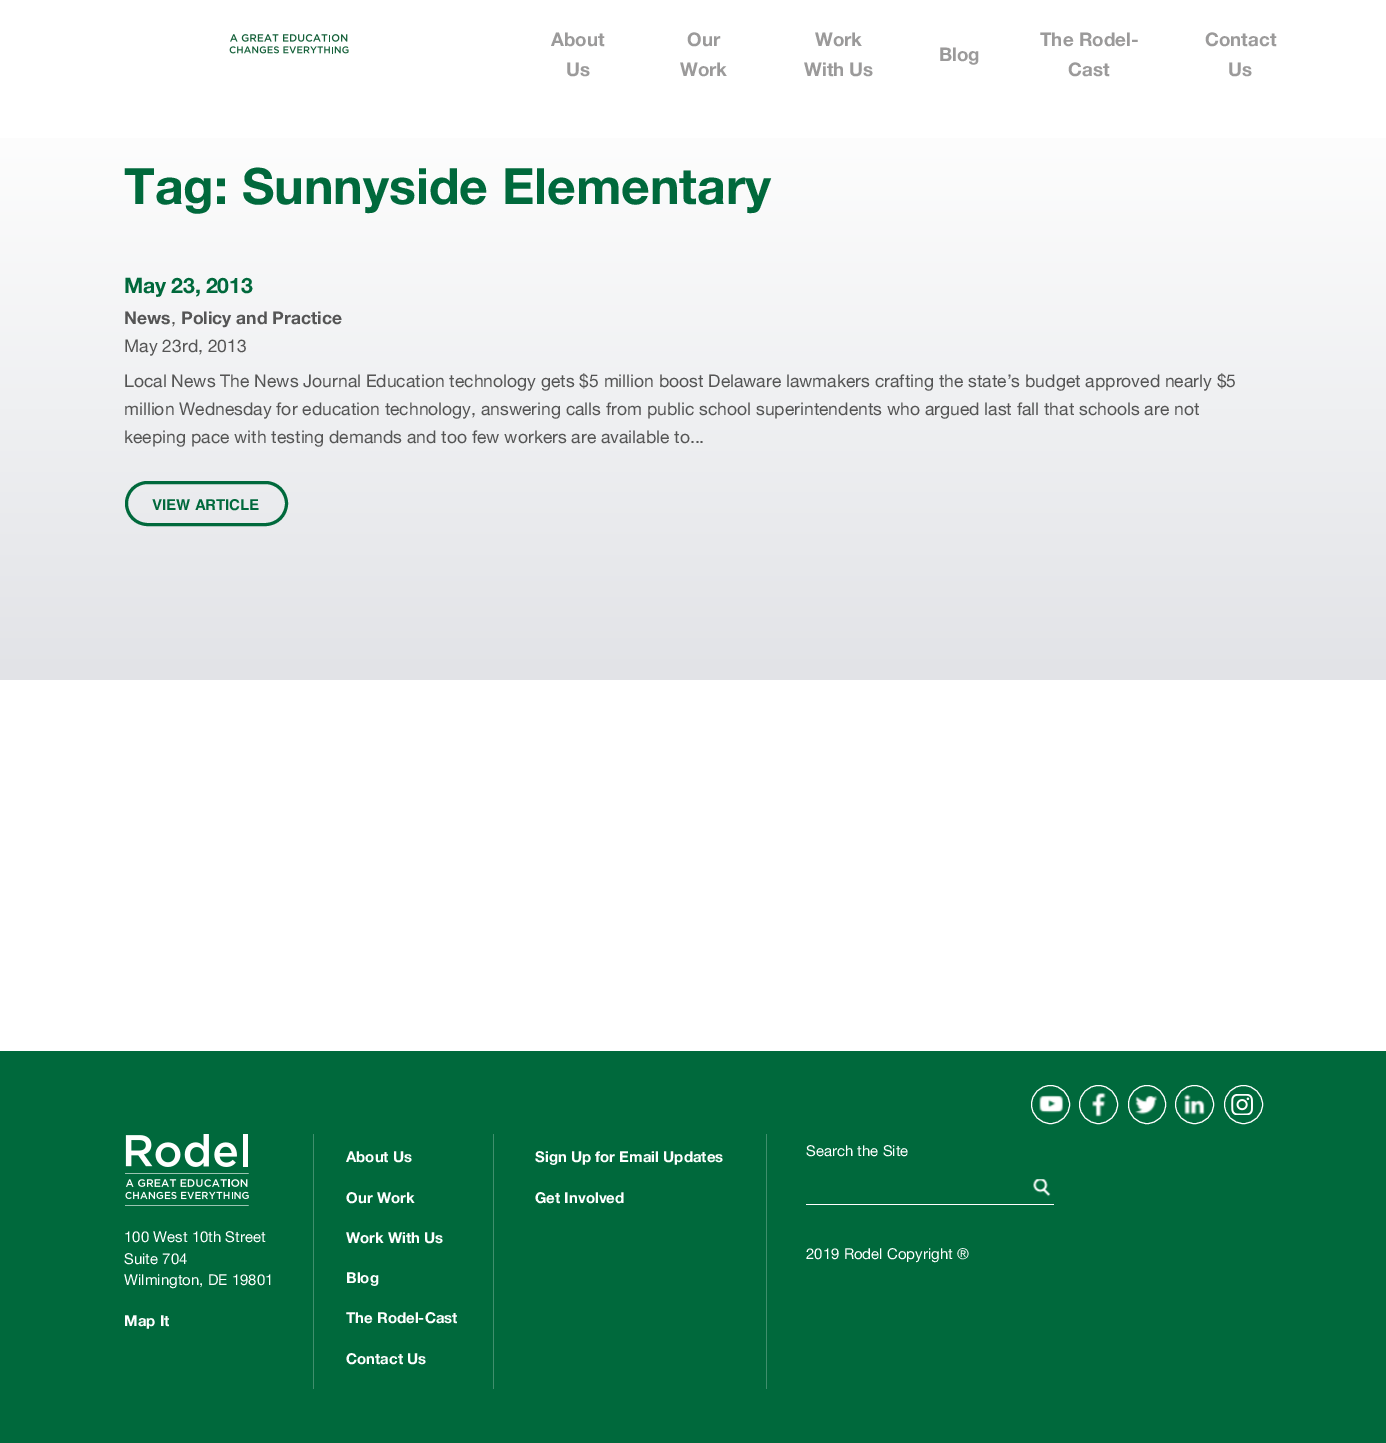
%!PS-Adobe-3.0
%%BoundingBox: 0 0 1386 1443
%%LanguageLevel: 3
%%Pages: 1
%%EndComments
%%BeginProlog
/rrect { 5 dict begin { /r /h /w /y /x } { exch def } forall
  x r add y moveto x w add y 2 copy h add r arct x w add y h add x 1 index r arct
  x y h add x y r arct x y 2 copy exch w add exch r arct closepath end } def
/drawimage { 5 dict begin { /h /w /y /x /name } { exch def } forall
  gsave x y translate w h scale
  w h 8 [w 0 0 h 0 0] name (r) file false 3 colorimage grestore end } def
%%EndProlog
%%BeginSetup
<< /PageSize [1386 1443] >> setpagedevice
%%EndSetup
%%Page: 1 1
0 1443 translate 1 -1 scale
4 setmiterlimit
1 setgray
0 0 1386 1443 rectfill
(images/1.raw) 229 34 120 20 drawimage
gsave newpath 0 138 moveto 1386 138 lineto 1386 680 lineto 0 680 lineto closepath clip newpath
<< /ShadingType 2 /ColorSpace /DeviceRGB /Coords [693 87 693 680] /Extend [true true] /Function << /FunctionType 2 /Domain [0 1] /C0 [1 1 1] /C1 [0.886 0.89 0.906] /N 1 >> >> shfill grestore
0 0.412 0.235 setrgbcolor
3 setlinewidth
126.5 482.5 160 42 21 rrect stroke
0 1051 1386 392 rectfill
1 setgray
1 setlinewidth
newpath 1050.5 1104.5 19 0 360 arc closepath stroke
(images/2.raw) 1039 1095 25 18 drawimage
newpath 1098.5 1104.5 19 0 360 arc closepath stroke
(images/3.raw) 1092 1092 14 25 drawimage
1128.5 1085.5 37 38 18.5 rrect stroke
(images/4.raw) 1135 1095 23 20 drawimage
newpath 1194.5 1104.5 19 0 360 arc closepath stroke
(images/5.raw) 1184 1094 21 21 drawimage
newpath 1243.5 1104.5 19 0 360 arc closepath stroke
(images/6.raw) 1231 1094 22 21 drawimage
0.251 0.561 0.427 setrgbcolor
313 1134 1 255 rectfill
493 1134 1 255 rectfill
766 1134 1 255 rectfill
(images/7.raw) 1033 1179 18 18 drawimage
1 setgray
806 1204 248 1 rectfill
(images/8.raw) 125 1134 124 72 drawimage
/HelveticaNeue-Bold [18.75 0 0 -18.75 0 0] selectfont
0.608 0.604 0.604 setrgbcolor
551 46 moveto (About) show
566 76 moveto (Us) show
687 46 moveto (Our) show
680 76 moveto (Work) show
815 46 moveto (Work) show
804 76 moveto (With Us) show
939 61 moveto (Blog) show
1040 46 moveto (The Rodel-) show
1068 76 moveto (Cast) show
1205 46 moveto (Contact) show
1228 76 moveto (Us) show
/HelveticaNeue-Bold [50 0 0 -50 0 0] selectfont
0 0.412 0.235 setrgbcolor
124 204 moveto (Tag: Sunnyside Elementary) show
/HelveticaNeue-Bold [21.25 0 0 -21.25 0 0] selectfont
124 293 moveto -0.25 0 (May 23, 2013) ashow
/HelveticaNeue-Bold [17.5 0 0 -17.5 0 0] selectfont
0.333 setgray
124 324 moveto (News) show
/HelveticaNeue-Regular [17.5 0 0 -17.5 0 0] selectfont
171 324 moveto (,) show
/HelveticaNeue-Bold [17.5 0 0 -17.5 0 0] selectfont
181 324 moveto (Policy and Practice) show
/HelveticaNeue-Regular [17.5 0 0 -17.5 0 0] selectfont
124 352 moveto (May 23rd, 2013) show
124 387 moveto (Local News The News Journal Education technology gets $5 million boost Delaware lawmakers crafting the state’s budget approved nearly $5) show
124 415 moveto (million Wednesday for education technology, answering calls from public school superintendents who argued last fall that schools are not) show
124 443 moveto (keeping pace with testing demands and too few workers are available to...) show
/Helvetica-Regular [15 0 0 -15 0 0] selectfont
0 0.412 0.235 setrgbcolor
152 510 moveto (VIEW ARTICLE) show
/HelveticaNeue-Bold [15 0 0 -15 0 0] selectfont
1 setgray
346 1162 moveto (About Us) show
346 1203 moveto (Our Work) show
346 1243 moveto (Work With Us) show
346 1283 moveto (Blog) show
346 1323 moveto (The Rodel-Cast) show
346 1364 moveto (Contact Us) show
535 1162 moveto (Sign Up for Email Updates) show
535 1203 moveto (Get Involved) show
/HelveticaNeue-Regular [15 0 0 -15 0 0] selectfont
806 1156 moveto (Search the Site) show
806 1259 moveto (2019 Rodel Copyright ®) show
124 1242 moveto (100 West 10th Street) show
124 1264 moveto (Suite 704) show
124 1285 moveto (Wilmington, DE 19801) show
/HelveticaNeue-Bold [15 0 0 -15 0 0] selectfont
124 1326 moveto (Map It) show
showpage
%%EOF
